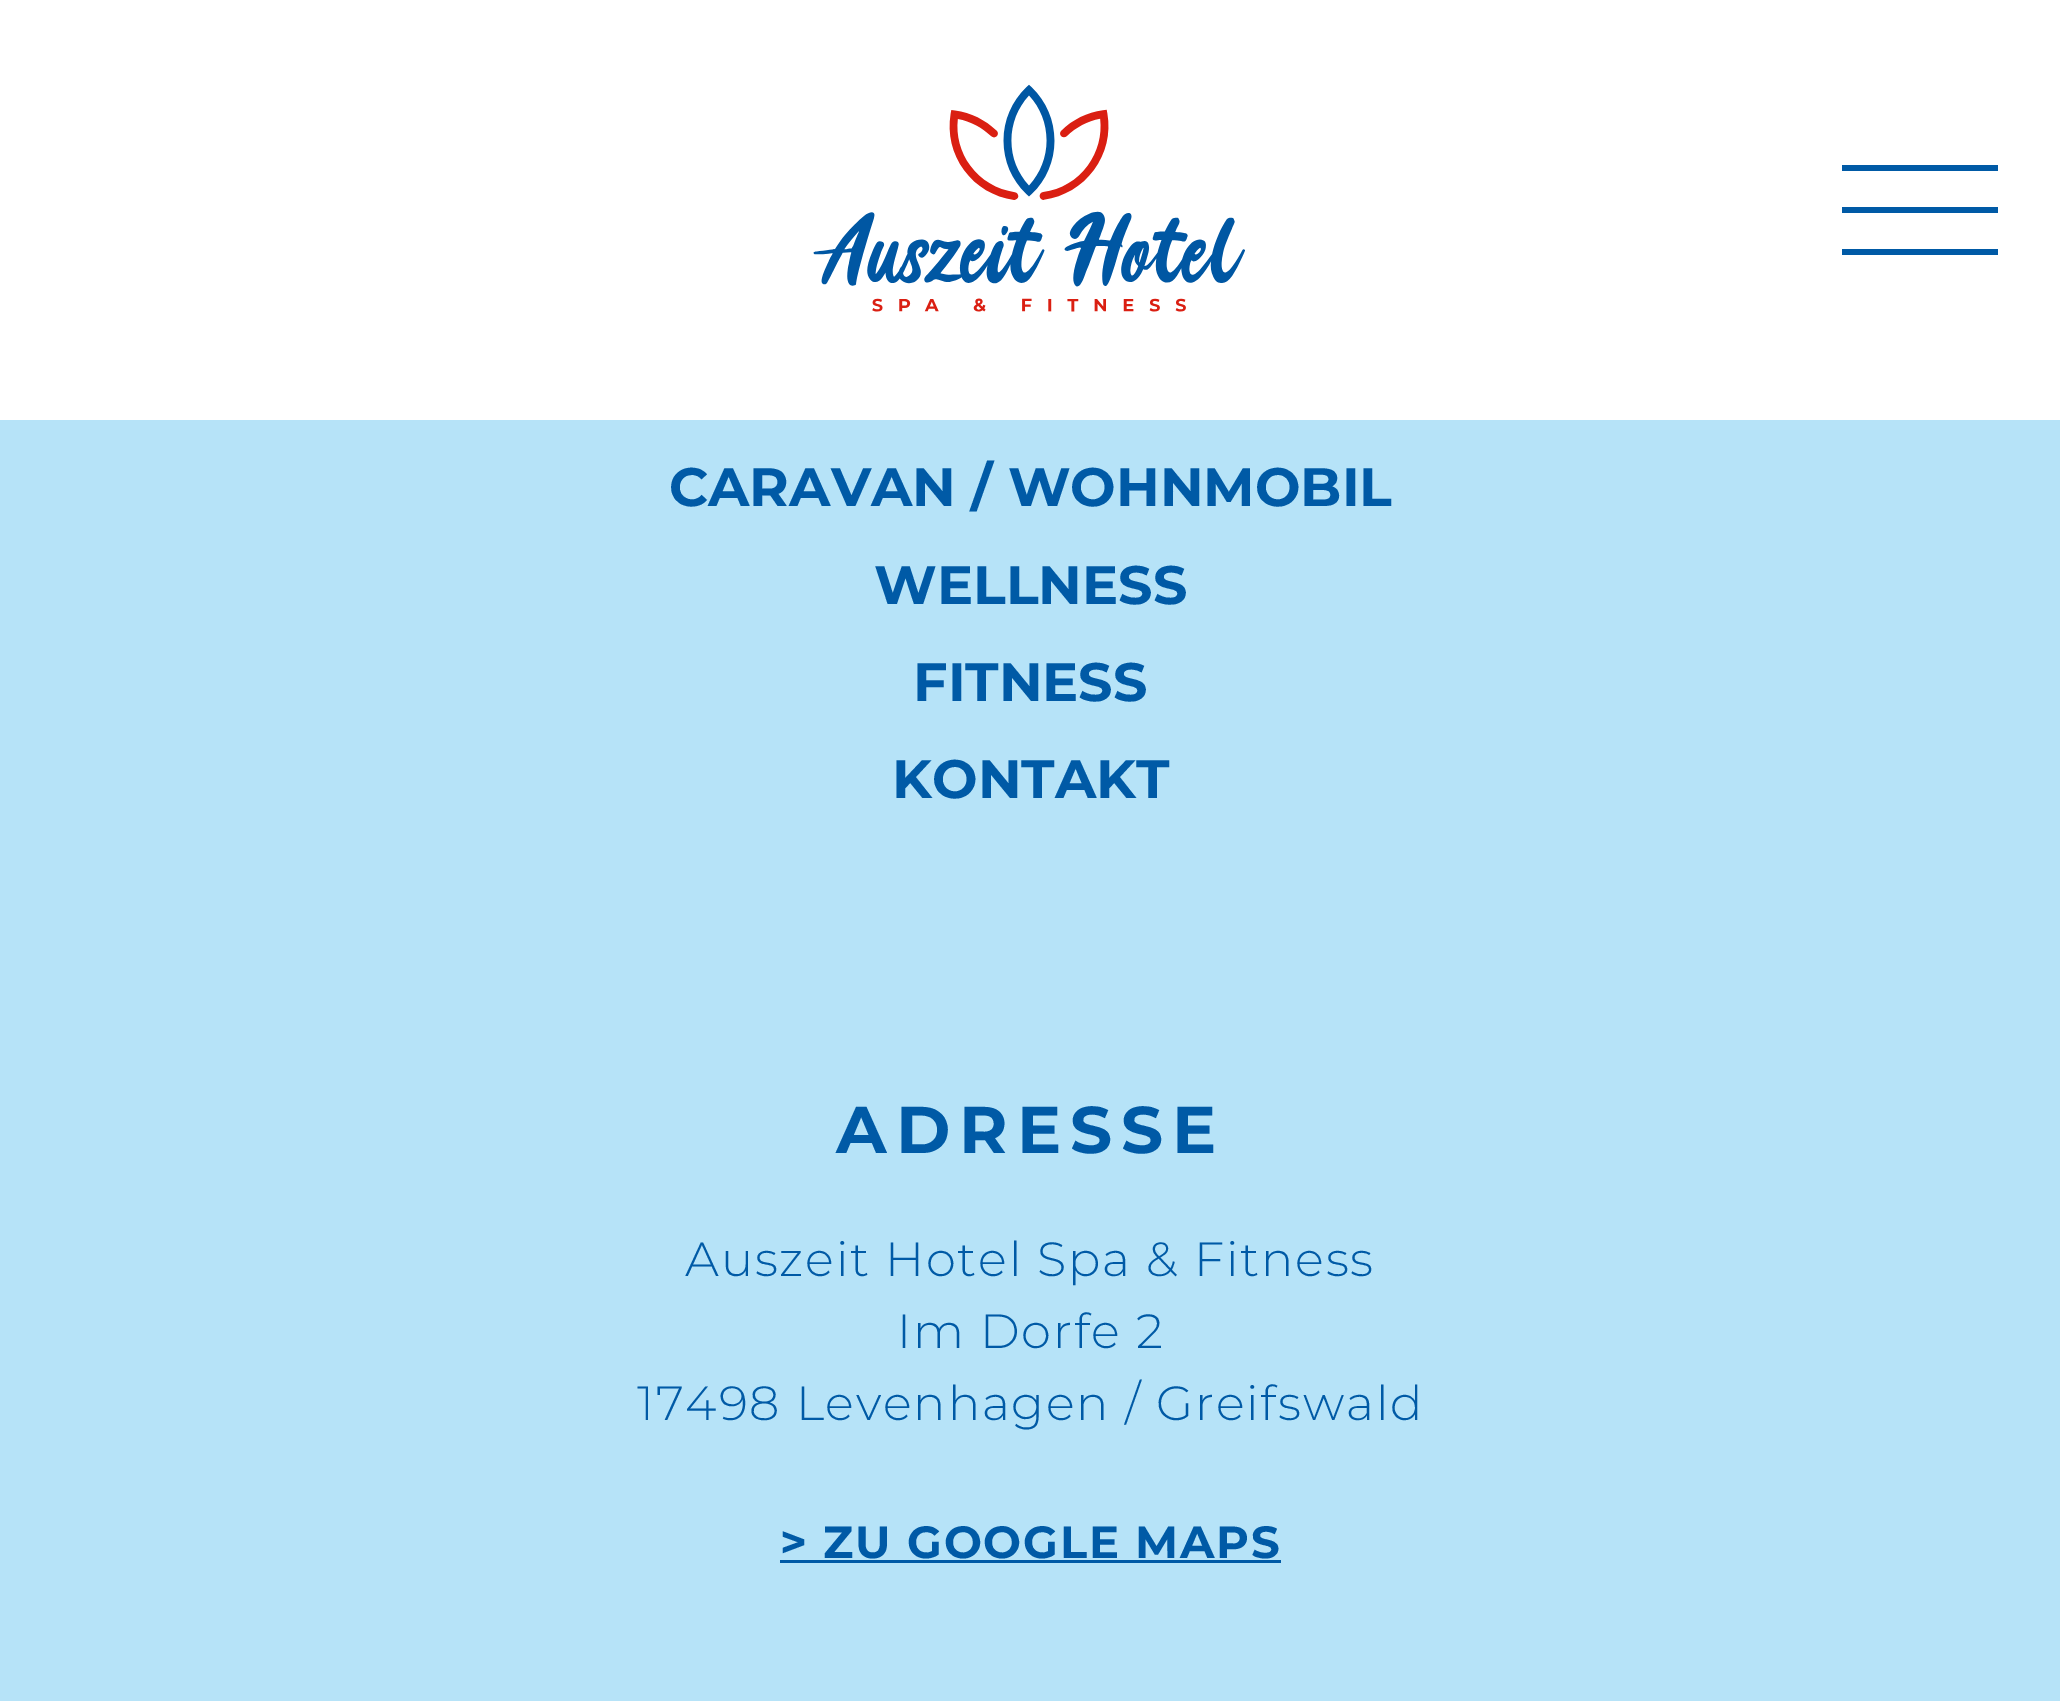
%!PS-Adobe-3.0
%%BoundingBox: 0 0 2060 1701
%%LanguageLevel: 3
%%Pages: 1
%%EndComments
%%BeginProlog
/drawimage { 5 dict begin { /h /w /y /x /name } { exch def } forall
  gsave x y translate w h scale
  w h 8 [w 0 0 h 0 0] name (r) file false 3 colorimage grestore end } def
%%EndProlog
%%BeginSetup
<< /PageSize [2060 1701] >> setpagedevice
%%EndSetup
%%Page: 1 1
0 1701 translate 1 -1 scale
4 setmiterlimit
0.714 0.89 0.973 setrgbcolor
0 0 2060 1701 rectfill
1 setgray
0 0 2060 420 rectfill
(images/1.raw) 813 84 432 228 drawimage
0 0.353 0.651 setrgbcolor
1842 165 156 6 rectfill
1842 207 156 6 rectfill
1842 249 156 6 rectfill
780 1560 501 3 rectfill
/Montserrat-Bold [54 0 0 -54 0 0] selectfont
669 506 moveto (CARAVAN / WOHNMOBIL) show
874 604 moveto (WELLNESS) show
913 701 moveto (FITNESS) show
892 798 moveto (KONTAKT) show
/Montserrat-Bold [66 0 0 -66 0 0] selectfont
836 1153 moveto 9 0 (ADRESSE) ashow
/Montserrat-Light [48 0 0 -48 0 0] selectfont
685 1276 moveto 1.8 0 (Auszeit Hotel Spa & Fitness) ashow
897 1348 moveto 1.8 0 (Im Dorfe 2) ashow
637 1420 moveto 1.8 0 (17498 Levenhagen / Greifswald) ashow
/Montserrat-Bold [45 0 0 -45 0 0] selectfont
780 1558 moveto 1.8 0 (> ZU GOOGLE MAPS) ashow
showpage
%%EOF
